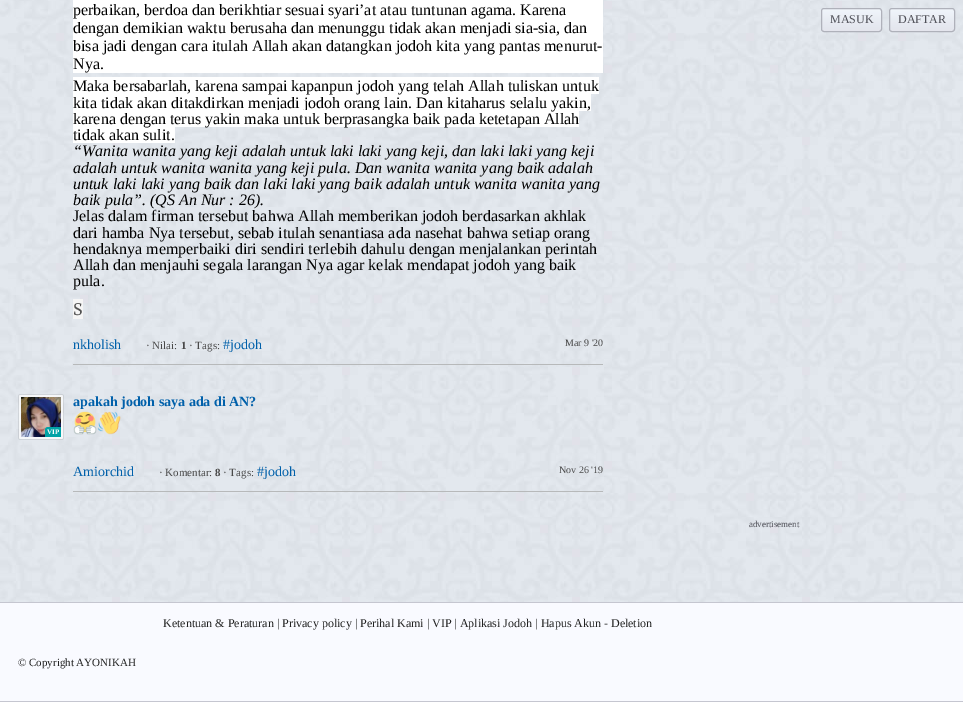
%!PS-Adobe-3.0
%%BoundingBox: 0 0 963 702
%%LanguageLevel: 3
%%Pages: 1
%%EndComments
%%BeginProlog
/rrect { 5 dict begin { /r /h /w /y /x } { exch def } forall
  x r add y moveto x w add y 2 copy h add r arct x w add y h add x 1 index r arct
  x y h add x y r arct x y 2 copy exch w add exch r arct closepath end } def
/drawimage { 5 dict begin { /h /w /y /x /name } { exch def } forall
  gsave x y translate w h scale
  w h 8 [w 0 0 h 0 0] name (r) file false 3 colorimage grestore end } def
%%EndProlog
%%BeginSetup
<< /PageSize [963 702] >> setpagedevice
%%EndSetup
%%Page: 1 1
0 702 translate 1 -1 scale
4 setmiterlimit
1 setgray
0 0 963 702 rectfill
(images/1.raw) 0 0 963 602 drawimage
0.718 0.725 0.729 setrgbcolor
73 364 530 1 rectfill
1 setgray
73 0 530 73 rectfill
73 77 526 17 rectfill
73 94 398 16 rectfill
73 127 102 16 rectfill
0.961 setgray
73 299 10 20 rectfill
(images/2.raw) 18 394 46 46 drawimage
(images/3.raw) 21 397 40 40 drawimage
0.004 0.635 0.651 setrgbcolor
newpath 48 427 moveto 61 427 lineto 61 437 lineto 45 437 lineto 45 430 lineto 45 428.5 46.5 427 48 427 curveto closepath fill
0.718 0.725 0.729 setrgbcolor
73 491 530 1 rectfill
(images/4.raw) 73 411 24 24 drawimage
(images/5.raw) 97 411 24 24 drawimage
(images/6.raw) 821 8 61 24 drawimage
0.686 0.694 0.729 setrgbcolor
821.5 8.5 60 23 2.5 rrect stroke
(images/7.raw) 889 8 66 24 drawimage
889.5 8.5 65 23 2.5 rrect stroke
0.976 0.98 1 setrgbcolor
0 603 963 98 rectfill
0.773 0.776 0.816 setrgbcolor
0 602 963 1 rectfill
0 701 963 1 rectfill
/LiberationSerif-Regular [16 0 0 -16 0 0] selectfont
0 setgray
73 15 moveto (perbaikan, berdoa dan berikhtiar sesuai syari’at atau tuntunan agama. Karena) show
73 33 moveto (dengan demikian waktu berusaha dan menunggu tidak akan menjadi sia-sia, dan) show
73 51 moveto (bisa jadi dengan cara itulah Allah akan datangkan jodoh kita yang pantas menurut-) show
73 69 moveto (Nya.) show
73 91 moveto (Maka bersabarlah, karena sampai kapanpun jodoh yang telah Allah tuliskan untuk) show
73 108 moveto (kita tidak akan ditakdirkan menjadi jodoh orang lain. Dan kita) show
1 setgray
471 94 120 17 rectfill
73 110 506 17 rectfill
0 setgray
73 124 moveto (karena dengan terus yakin maka untuk berprasangka baik pada ketetapan Allah) show
471 108 moveto (harus selalu yakin,) show
73 140 moveto (tidak akan sulit.) show
/LiberationSerif-Italic [16 0 0 -16 0 0] selectfont
73 156 moveto (“Wanita wanita yang keji adalah untuk laki laki yang keji, dan laki laki yang keji) show
73 173 moveto (adalah untuk wanita wanita yang keji pula. Dan wanita wanita yang baik adalah) show
73 189 moveto (untuk laki laki yang baik dan laki laki yang baik adalah untuk wanita wanita yang) show
73 205 moveto (baik pula”. \(QS An Nur : 26\).) show
/LiberationSerif-Regular [16 0 0 -16 0 0] selectfont
73 221 moveto (Jelas dalam firman tersebut bahwa Allah memberikan jodoh berdasarkan akhlak) show
73 238 moveto (dari hamba Nya tersebut, sebab itulah senantiasa ada nasehat bahwa setiap orang) show
73 254 moveto (hendaknya memperbaiki diri sendiri terlebih dahulu dengan menjalankan perintah) show
73 270 moveto (Allah dan menjauhi segala larangan Nya agar kelak mendapat jodoh yang baik) show
73 286 moveto (pula.) show
/Merriweather-Regular [16 0 0 -16 0 0] selectfont
0.322 setgray
73 315 moveto (S) show
/LiberationSerif-Regular [14 0 0 -14 0 0] selectfont
0 0.376 0.667 setrgbcolor
73 349 moveto (nkholish) show
/LiberationSerif-Regular [11 0 0 -11 0 0] selectfont
0.286 setgray
146 349 moveto (· Nilai:) show
/LiberationSerif-Bold [11 0 0 -11 0 0] selectfont
181 349 moveto (1) show
/LiberationSerif-Regular [11 0 0 -11 0 0] selectfont
189 349 moveto (· Tags:) show
/LiberationSerif-Regular [14 0 0 -14 0 0] selectfont
0 0.376 0.667 setrgbcolor
223 349 moveto (#jodoh) show
/LiberationSerif-Regular [10 0 0 -10 0 0] selectfont
0.286 setgray
565 346 moveto (Mar 9 '20) show
/LiberationSerif-Bold [7 0 0 -7 0 0] selectfont
1 setgray
47 434 moveto (VIP) show
/LiberationSerif-Bold [14 0 0 -14 0 0] selectfont
0 0.376 0.667 setrgbcolor
73 406 moveto (apakah jodoh saya ada di AN?) show
/LiberationSerif-Regular [14 0 0 -14 0 0] selectfont
73 476 moveto (Amiorchid) show
/LiberationSerif-Regular [11 0 0 -11 0 0] selectfont
0.286 setgray
159 476 moveto (· Komentar:) show
/LiberationSerif-Bold [11 0 0 -11 0 0] selectfont
215 476 moveto (8) show
/LiberationSerif-Regular [11 0 0 -11 0 0] selectfont
223 476 moveto (· Tags:) show
/LiberationSerif-Regular [14 0 0 -14 0 0] selectfont
0 0.376 0.667 setrgbcolor
257 476 moveto (#jodoh) show
/LiberationSerif-Regular [10 0 0 -10 0 0] selectfont
0.286 setgray
559 473 moveto (Nov 26 '19) show
/LiberationSerif-Regular [9 0 0 -9 0 0] selectfont
0.31 0.314 0.345 setrgbcolor
749 527 moveto (advertisement) show
/LiberationSerif-Regular [12 0 0 -12 0 0] selectfont
830 23 moveto (MASUK) show
898 23 moveto (DAFTAR) show
0.133 setgray
163 627 moveto (Ketentuan & Peraturan | Privacy policy | Perihal Kami | VIP | Aplikasi Jodoh | Hapus Akun - Deletion) show
/LiberationSerif-Regular [11 0 0 -11 0 0] selectfont
18 666 moveto (© Copyright AYONIKAH) show
showpage
%%EOF
